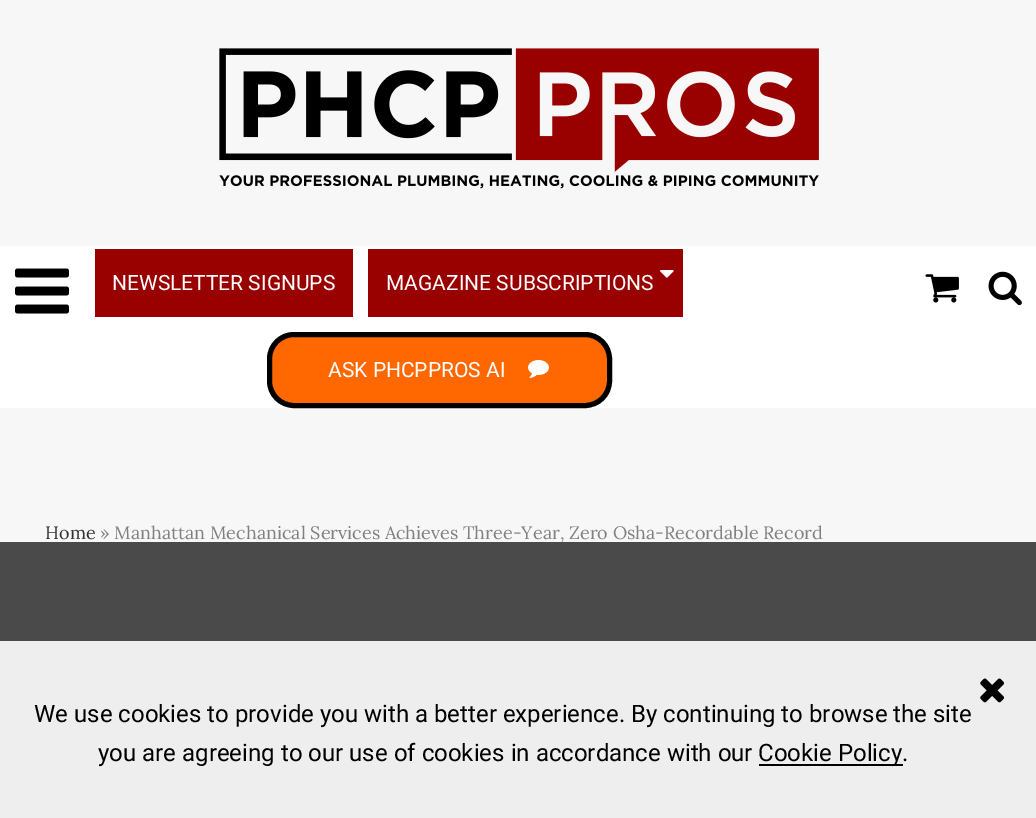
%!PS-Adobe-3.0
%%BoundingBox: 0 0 1036 818
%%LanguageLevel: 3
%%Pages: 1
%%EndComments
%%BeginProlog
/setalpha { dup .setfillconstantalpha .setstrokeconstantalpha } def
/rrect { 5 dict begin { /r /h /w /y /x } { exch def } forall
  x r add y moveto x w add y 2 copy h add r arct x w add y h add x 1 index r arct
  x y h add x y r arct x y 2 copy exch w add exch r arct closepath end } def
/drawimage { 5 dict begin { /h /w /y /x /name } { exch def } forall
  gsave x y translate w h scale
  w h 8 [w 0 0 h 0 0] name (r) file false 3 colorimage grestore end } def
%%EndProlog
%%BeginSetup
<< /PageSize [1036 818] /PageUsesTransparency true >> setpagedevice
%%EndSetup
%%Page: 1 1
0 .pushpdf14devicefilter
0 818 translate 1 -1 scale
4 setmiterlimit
0.969 setgray
0 0 1036 818 rectfill
(images/1.raw) 219 48 600 141 drawimage
1 setgray
0 246 1036 162 rectfill
(images/2.raw) 15 268 54 46 drawimage
0.6 0 0 setrgbcolor
95 249 258 68 rectfill
368 249 315 68 rectfill
(images/3.raw) 660 270 14 8 drawimage
1 0.404 0 setrgbcolor
269.5 334.5 340 71 24.5 rrect gsave fill grestore
0 setgray
5 setlinewidth
stroke
(images/4.raw) 528 360 21 18 drawimage
(images/5.raw) 925 274 34 29 drawimage
(images/6.raw) 988 271 34 35 drawimage
0.933 setgray
0 641 1036 177 rectfill
(images/7.raw) 980 678 25 25 drawimage
0 setgray
759 764 144 2 rectfill
/Roboto-Regular [21 0 0 -21 0 0] selectfont
1 setgray
112 290 moveto (NEWSLETTER SIGNUPS) show
386 290 moveto (MAGAZINE SUBSCRIPTIONS) show
328 377 moveto (ASK PHCPPROS AI) show
/Lora-Regular [18 0 0 -18 0 0] selectfont
0.2 setgray
45 539 moveto (Home) show
0.502 setgray
100 539 moveto (» Manhattan Mechanical Services Achieves Three-Year, Zero Osha-Recordable Record) show
0.7 setalpha
0 setgray
0 542 1036 99 rectfill
/Roboto-Regular [24 0 0 -24 0 0] selectfont
1 setalpha
34 722 moveto (We use cookies to provide you with a better experience. By continuing to browse the site) show
98 761 moveto (you are agreeing to our use of cookies in accordance with our) show
758 761 moveto (Cookie Policy.) show
.poppdf14devicefilter showpage
%%EOF
